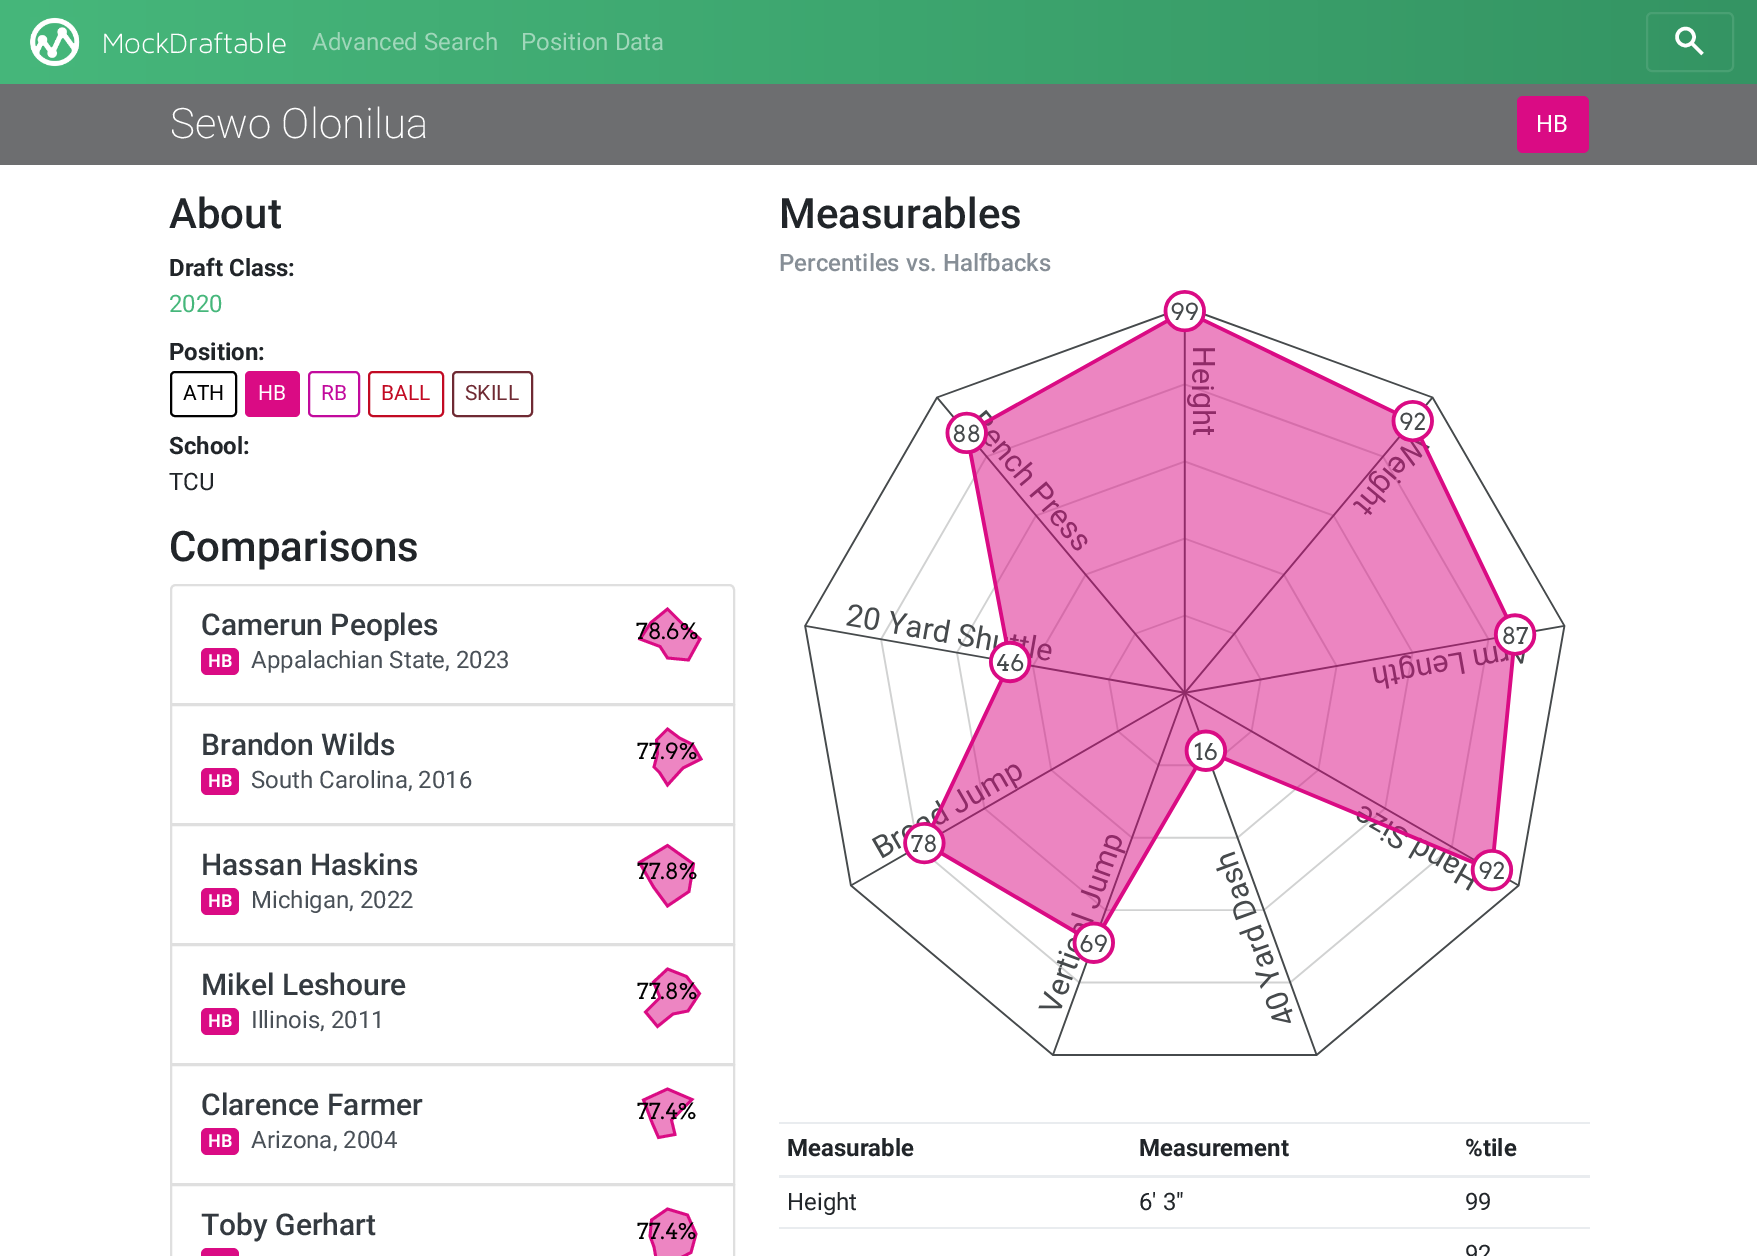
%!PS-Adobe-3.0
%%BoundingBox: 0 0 1757 1256
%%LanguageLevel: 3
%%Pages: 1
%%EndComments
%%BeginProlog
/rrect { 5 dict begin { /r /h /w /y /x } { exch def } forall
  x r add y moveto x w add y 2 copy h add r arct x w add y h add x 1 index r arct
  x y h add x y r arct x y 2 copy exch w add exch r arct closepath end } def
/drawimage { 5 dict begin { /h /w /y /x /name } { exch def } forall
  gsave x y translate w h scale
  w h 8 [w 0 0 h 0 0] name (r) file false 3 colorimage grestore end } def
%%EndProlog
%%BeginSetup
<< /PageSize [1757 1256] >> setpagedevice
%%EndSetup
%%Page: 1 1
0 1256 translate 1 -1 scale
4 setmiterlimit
1 setgray
0 0 1757 1256 rectfill
gsave newpath 0 0 moveto 1757 0 lineto 1757 84 lineto 0 84 lineto closepath clip newpath
<< /ShadingType 2 /ColorSpace /DeviceRGB /Coords [0 42 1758 42] /Extend [true true] /Function << /FunctionType 2 /Domain [0 1] /C0 [0.275 0.718 0.482] /C1 [0.204 0.58 0.388] /N 1 >> >> shfill grestore
(images/1.raw) 30 17 50 50 drawimage
0.286 0.627 0.451 setrgbcolor
2 setlinewidth
1647 13 86 58 5 rrect stroke
1 setgray
3.5 setlinewidth
newpath 1685.5 37 8.5 0 360 arc closepath stroke
newpath 1691 42.5 moveto 1702.5 54 lineto stroke
0.427 0.431 0.439 setrgbcolor
0 84 1757 81 rectfill
0.855 0.043 0.518 setrgbcolor
1517 96 72 57 6 rrect fill
0 setgray
2 setlinewidth
171 372 65 44 4 rrect stroke
0.855 0.043 0.518 setrgbcolor
245 371 55 46 5 rrect fill
0.761 0.039 0.616 setrgbcolor
309 372 50 44 4 rrect stroke
0.761 0.039 0.137 setrgbcolor
369 372 74 44 4 rrect stroke
0.435 0.165 0.2 setrgbcolor
453 372 79 44 4 rrect stroke
0.875 setgray
newpath 176 585 moveto 729 585 lineto 732 585 734 587 734 590 curveto 734 704 lineto 171 704 lineto 171 590 lineto 171 587 173 585 176 585 curveto closepath stroke
0.855 0.043 0.518 setrgbcolor
201 648 38 27 6 rrect fill
0.929 0.522 0.761 setrgbcolor
newpath 668 609 moveto 683 624 lineto 700 639 lineto 688 660 lineto 668 658 lineto 660 647 lineto 640 639 lineto 651 623 lineto closepath fill
0.855 0.043 0.518 setrgbcolor
2.8 setlinewidth
newpath 667.5 609 moveto 682.5 624 lineto 700 639 lineto 688.5 660 lineto 667.5 658 lineto 660 646.5 lineto 640 639 lineto 651 622.5 lineto closepath stroke
0.875 setgray
2 setlinewidth
171 705 563 119 rectstroke
0.855 0.043 0.518 setrgbcolor
201 768 38 27 6 rrect fill
0.929 0.522 0.761 setrgbcolor
newpath 668 729 moveto 680 738 lineto 693 744 lineto 701 759 lineto 683 768 lineto 668 785 lineto 660 772 lineto 654 767 lineto 658 753 lineto 656 740 lineto closepath fill
0.855 0.043 0.518 setrgbcolor
2.8 setlinewidth
newpath 667.5 729 moveto 679.5 738 lineto 692.5 744.5 lineto 701 759 lineto 683 768 lineto 667.5 785 lineto 659.5 772.5 lineto 654 767 lineto 657.5 753.5 lineto 656.5 740 lineto closepath stroke
0.875 setgray
2 setlinewidth
171 825 563 119 rectstroke
0.855 0.043 0.518 setrgbcolor
201 888 38 27 6 rrect fill
0.929 0.522 0.761 setrgbcolor
newpath 668 845 moveto 694 864 lineto 689 891 lineto 668 906 lineto 653 887 lineto 639 863 lineto closepath fill
0.855 0.043 0.518 setrgbcolor
2.8 setlinewidth
newpath 667.5 845.5 moveto 693.5 864 lineto 689 891.5 lineto 667.5 906 lineto 653.5 887 lineto 639.5 862.5 lineto closepath stroke
0.875 setgray
2 setlinewidth
171 945 563 119 rectstroke
0.855 0.043 0.518 setrgbcolor
201 1008 38 27 6 rrect fill
0.929 0.522 0.761 setrgbcolor
newpath 668 969 moveto 686 976 lineto 700 993 lineto 688 1011 lineto 673 1014 lineto 657 1027 lineto 645 1012 lineto 660 998 lineto 653 982 lineto closepath fill
0.855 0.043 0.518 setrgbcolor
2.8 setlinewidth
newpath 667.5 969 moveto 686.5 976.5 lineto 699.5 993.5 lineto 688 1011 lineto 673 1014 lineto 657.5 1026.5 lineto 645.5 1012 lineto 660 997.5 lineto 653.5 982 lineto closepath stroke
0.875 setgray
2 setlinewidth
171 1065 563 119 rectstroke
0.855 0.043 0.518 setrgbcolor
201 1128 38 27 6 rrect fill
0.929 0.522 0.761 setrgbcolor
newpath 668 1089 moveto 692 1099 lineto 672 1120 lineto 675 1135 lineto 659 1137 lineto 652 1123 lineto 644 1100 lineto closepath fill
0.855 0.043 0.518 setrgbcolor
2.8 setlinewidth
newpath 667.5 1089 moveto 692 1099.5 lineto 671.5 1120 lineto 675 1134.5 lineto 658.5 1137.5 lineto 652 1122.5 lineto 643.5 1100 lineto closepath stroke
0.875 setgray
2 setlinewidth
171 1185 563 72 rectstroke
0.855 0.043 0.518 setrgbcolor
201 1248 38 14 6 rrect fill
0.929 0.522 0.761 setrgbcolor
newpath 668 1209 moveto 688 1215 lineto 696 1234 lineto 691 1252 lineto 675 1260 lineto 657 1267 lineto 654 1247 lineto 650 1236 lineto 651 1220 lineto closepath fill
0.855 0.043 0.518 setrgbcolor
2.8 setlinewidth
newpath 667.5 1209 moveto 687.5 1215 lineto 696 1234 lineto 691 1252.5 lineto 675.5 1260.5 lineto 657.5 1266.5 lineto 654 1247 lineto 650 1236 lineto 651.5 1220 lineto closepath stroke
(images/2.raw) 804 290 762 766 drawimage
0.914 0.925 0.937 setrgbcolor
779 1122 811 2 rectfill
779 1175 811 3 rectfill
779 1227 811 2 rectfill
/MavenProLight-Light [30 0 0 -30 0 0] selectfont
1 setgray
102 53 moveto (MockDraftable) show
/Roboto-Regular [24 0 0 -24 0 0] selectfont
0.627 0.843 0.729 setrgbcolor
312 50 moveto (Advanced Search) show
521 50 moveto (Position Data) show
/Roboto-ExtraLight [42 0 0 -42 0 0] selectfont
1 setgray
170 138 moveto (Sewo Olonilua) show
/Roboto-Regular [24 0 0 -24 0 0] selectfont
1536 132 moveto (HB) show
/Roboto-Medium [42 0 0 -42 0 0] selectfont
0.129 0.145 0.161 setrgbcolor
169 228 moveto (About) show
/Roboto-Bold [24 0 0 -24 0 0] selectfont
169 276 moveto (Draft Class:) show
/Roboto-Regular [24 0 0 -24 0 0] selectfont
0.275 0.718 0.482 setrgbcolor
169 312 moveto (2020) show
/Roboto-Bold [24 0 0 -24 0 0] selectfont
0.129 0.145 0.161 setrgbcolor
169 360 moveto (Position:) show
/Roboto-Regular [21 0 0 -21 0 0] selectfont
0 setgray
183 400 moveto (ATH) show
1 setgray
258 400 moveto (HB) show
0.761 0.039 0.616 setrgbcolor
321 400 moveto (RB) show
0.761 0.039 0.137 setrgbcolor
381 400 moveto (BALL) show
0.435 0.165 0.2 setrgbcolor
465 400 moveto (SKILL) show
/Roboto-Bold [24 0 0 -24 0 0] selectfont
0.129 0.145 0.161 setrgbcolor
169 454 moveto (School:) show
/Roboto-Regular [24 0 0 -24 0 0] selectfont
169 490 moveto (TCU) show
/Roboto-Medium [42 0 0 -42 0 0] selectfont
169 561 moveto (Comparisons) show
/Roboto-Medium [30 0 0 -30 0 0] selectfont
0.204 0.227 0.251 setrgbcolor
201 635 moveto (Camerun Peoples) show
/Roboto-Bold [18 0 0 -18 0 0] selectfont
1 setgray
208 667 moveto (HB) show
/Roboto-Regular [24 0 0 -24 0 0] selectfont
0.286 0.314 0.341 setrgbcolor
251 668 moveto (Appalachian State, 2023) show
/Arvo-Regular [22 0 0 -22 0 0] selectfont
0 setgray
636 639 moveto (78.6%) show
/Roboto-Medium [30 0 0 -30 0 0] selectfont
0.204 0.227 0.251 setrgbcolor
201 755 moveto (Brandon Wilds) show
/Roboto-Bold [18 0 0 -18 0 0] selectfont
1 setgray
208 787 moveto (HB) show
/Roboto-Regular [24 0 0 -24 0 0] selectfont
0.286 0.314 0.341 setrgbcolor
251 788 moveto (South Carolina, 2016) show
/Arvo-Regular [22 0 0 -22 0 0] selectfont
0 setgray
637 759 moveto (77.9%) show
/Roboto-Medium [30 0 0 -30 0 0] selectfont
0.204 0.227 0.251 setrgbcolor
201 875 moveto (Hassan Haskins) show
/Roboto-Bold [18 0 0 -18 0 0] selectfont
1 setgray
208 907 moveto (HB) show
/Roboto-Regular [24 0 0 -24 0 0] selectfont
0.286 0.314 0.341 setrgbcolor
251 908 moveto (Michigan, 2022) show
/Arvo-Regular [22 0 0 -22 0 0] selectfont
0 setgray
637 879 moveto (77.8%) show
/Roboto-Medium [30 0 0 -30 0 0] selectfont
0.204 0.227 0.251 setrgbcolor
201 995 moveto (Mikel Leshoure) show
/Roboto-Bold [18 0 0 -18 0 0] selectfont
1 setgray
208 1027 moveto (HB) show
/Roboto-Regular [24 0 0 -24 0 0] selectfont
0.286 0.314 0.341 setrgbcolor
251 1028 moveto (Illinois, 2011) show
/Arvo-Regular [22 0 0 -22 0 0] selectfont
0 setgray
637 999 moveto (77.8%) show
/Roboto-Medium [30 0 0 -30 0 0] selectfont
0.204 0.227 0.251 setrgbcolor
201 1115 moveto (Clarence Farmer) show
/Roboto-Bold [18 0 0 -18 0 0] selectfont
1 setgray
208 1147 moveto (HB) show
/Roboto-Regular [24 0 0 -24 0 0] selectfont
0.286 0.314 0.341 setrgbcolor
251 1148 moveto (Arizona, 2004) show
/Arvo-Regular [22 0 0 -22 0 0] selectfont
0 setgray
637 1119 moveto (77.4%) show
/Roboto-Medium [30 0 0 -30 0 0] selectfont
0.204 0.227 0.251 setrgbcolor
201 1235 moveto (Toby Gerhart) show
/Arvo-Regular [22 0 0 -22 0 0] selectfont
0 setgray
637 1239 moveto (77.4%) show
/Roboto-Medium [42 0 0 -42 0 0] selectfont
0.129 0.145 0.161 setrgbcolor
779 228 moveto (Measurables) show
/Roboto-Medium [24 0 0 -24 0 0] selectfont
0.525 0.557 0.588 setrgbcolor
779 271 moveto (Percentiles vs. Halfbacks) show
/Roboto-Bold [24 0 0 -24 0 0] selectfont
0.129 0.145 0.161 setrgbcolor
787 1156 moveto (Measurable) show
1139 1156 moveto (Measurement) show
1465 1156 moveto (%tile) show
/Roboto-Regular [24 0 0 -24 0 0] selectfont
787 1210 moveto (Height) show
1139 1210 moveto (6' 3") show
1465 1210 moveto (99) show
1465 1262 moveto (92) show
showpage
%%EOF
